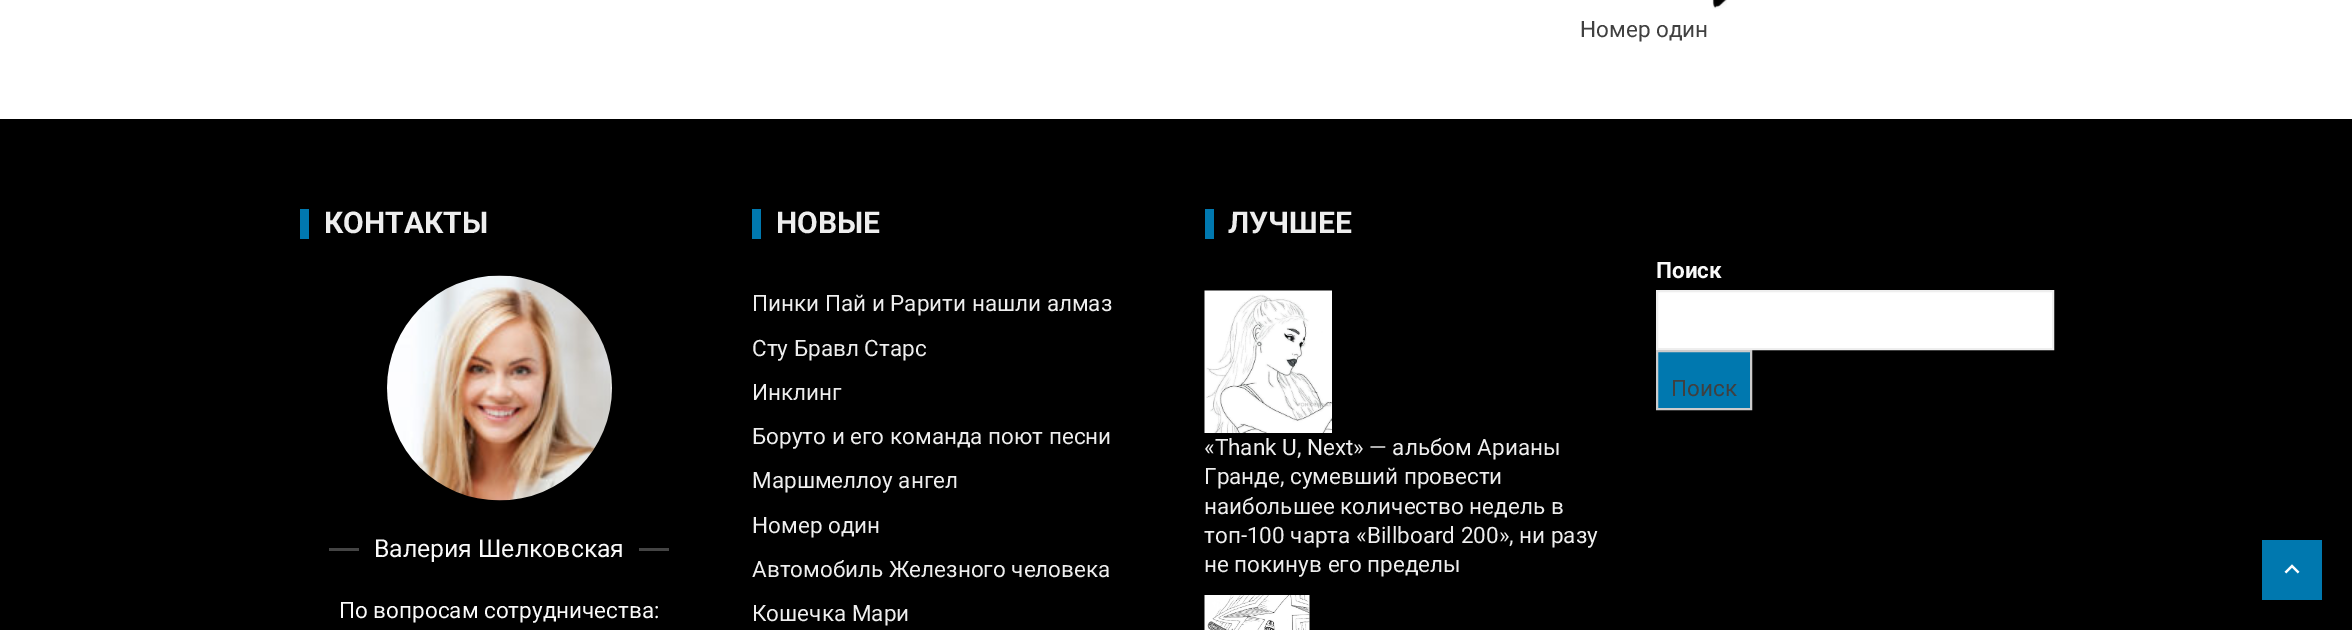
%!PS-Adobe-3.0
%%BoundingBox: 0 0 2352 630
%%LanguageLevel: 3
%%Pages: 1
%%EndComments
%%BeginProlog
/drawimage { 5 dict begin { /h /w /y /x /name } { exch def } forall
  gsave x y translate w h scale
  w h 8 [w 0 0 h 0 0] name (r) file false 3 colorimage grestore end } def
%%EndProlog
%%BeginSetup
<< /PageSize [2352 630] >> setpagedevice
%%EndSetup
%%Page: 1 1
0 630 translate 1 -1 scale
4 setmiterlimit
1 setgray
0 0 2352 630 rectfill
(images/1.raw) 1712 0 15 9 drawimage
0 setgray
0 119 2352 511 rectfill
0 0.471 0.686 setrgbcolor
300 209 9 30 rectfill
(images/2.raw) 387 275 225 226 drawimage
0.267 setgray
329 548 30 3 rectfill
639 548 30 3 rectfill
0 0.471 0.686 setrgbcolor
752 209 9 30 rectfill
1205 209 9 30 rectfill
(images/3.raw) 1204 290 128 143 drawimage
(images/4.raw) 1204 595 106 35 drawimage
1 setgray
newpath 1657 291 moveto 2053 291 lineto 2053 349 lineto 1657 349 lineto closepath gsave fill grestore
0.933 setgray
2 setlinewidth
stroke
0 0.471 0.686 setrgbcolor
newpath 1657 351 moveto 1751 351 lineto 1751 409 lineto 1657 409 lineto closepath gsave fill grestore
0.8 setgray
stroke
0 0.471 0.686 setrgbcolor
2262 540 60 60 rectfill
(images/5.raw) 2284 564 16 10 drawimage
/Roboto-Regular [22.5 0 0 -22.5 0 0] selectfont
0.251 setgray
1580 37 moveto (Номер один) show
/Roboto-Bold [30 0 0 -30 0 0] selectfont
0.933 setgray
324 233 moveto (КОНТАКТЫ) show
/Roboto-Regular [24.75 0 0 -24.75 0 0] selectfont
0.98 setgray
374 557 moveto (Валерия Шелковская) show
/Roboto-Regular [22.5 0 0 -22.5 0 0] selectfont
339 618 moveto (По вопросам сотрудничества:) show
/Roboto-Bold [30 0 0 -30 0 0] selectfont
0.933 setgray
776 233 moveto (НОВЫЕ) show
/Roboto-Regular [22.5 0 0 -22.5 0 0] selectfont
752 311 moveto (Пинки Пай и Рарити нашли алмаз) show
752 356 moveto (Сту Бравл Старс) show
752 400 moveto (Инклинг) show
752 444 moveto (Боруто и его команда поют песни) show
752 488 moveto (Маршмеллоу ангел) show
752 533 moveto (Номер один) show
752 577 moveto (Автомобиль Железного человека) show
752 621 moveto (Кошечка Мари) show
/Roboto-Bold [30 0 0 -30 0 0] selectfont
1228 233 moveto (ЛУЧШЕЕ) show
/Roboto-Regular [22.5 0 0 -22.5 0 0] selectfont
1204 455 moveto («Thank U, Next» — альбом Арианы) show
1204 484 moveto (Гранде, сумевший провести) show
1204 514 moveto (наибольшее количество недель в) show
1204 543 moveto (топ-100 чарта «Billboard 200», ни разу) show
1204 572 moveto (не покинув его пределы) show
/Roboto-Bold [22.5 0 0 -22.5 0 0] selectfont
0.98 setgray
1656 278 moveto (Поиск) show
/Roboto-Regular [22.5 0 0 -22.5 0 0] selectfont
0.251 setgray
1671 396 moveto (Поиск) show
showpage
%%EOF
